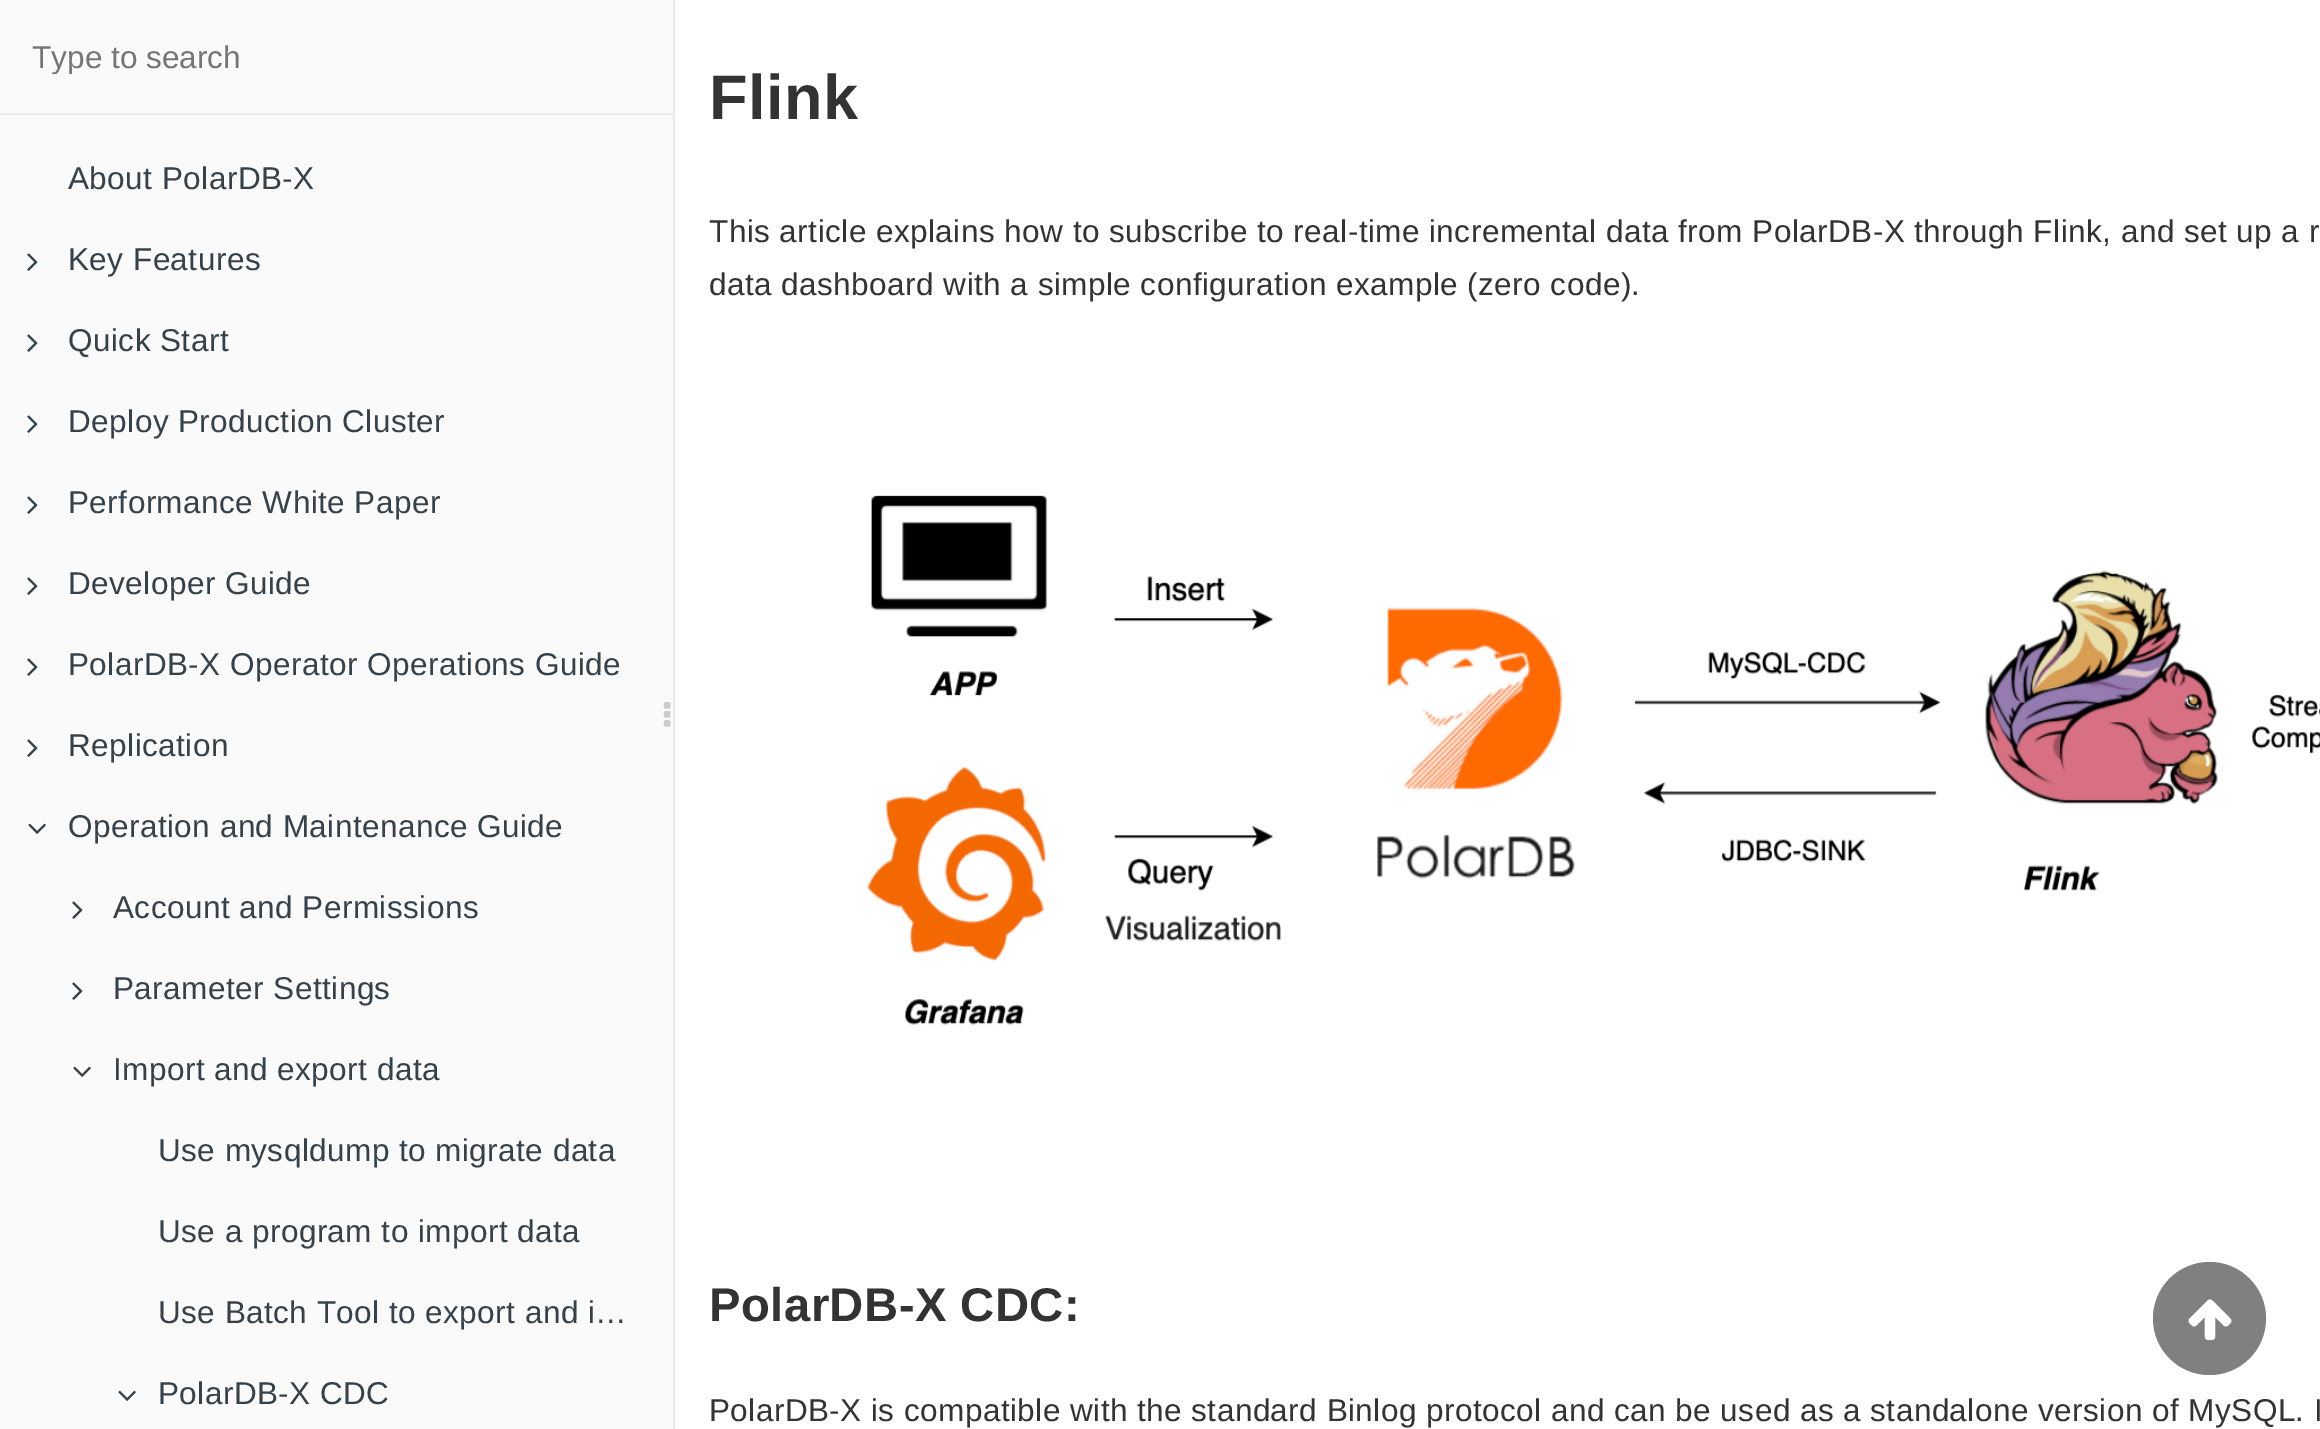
%!PS-Adobe-3.0
%%BoundingBox: 0 0 2320 1429
%%LanguageLevel: 3
%%Pages: 1
%%EndComments
%%BeginProlog
/drawimage { 5 dict begin { /h /w /y /x /name } { exch def } forall
  gsave x y translate w h scale
  w h 8 [w 0 0 h 0 0] name (r) file false 3 colorimage grestore end } def
%%EndProlog
%%BeginSetup
<< /PageSize [2320 1429] >> setpagedevice
%%EndSetup
%%Page: 1 1
0 1429 translate 1 -1 scale
4 setmiterlimit
1 setgray
0 0 2320 1429 rectfill
0.98 setgray
0 0 673 1429 rectfill
0.914 setgray
673 0 2 1429 rectfill
0 113 673 2 rectfill
(images/1.raw) 27 253 11 18 drawimage
(images/1.raw) 27 334 11 18 drawimage
(images/1.raw) 27 415 11 18 drawimage
(images/1.raw) 27 496 11 18 drawimage
(images/1.raw) 27 577 11 18 drawimage
(images/1.raw) 27 658 11 18 drawimage
(images/1.raw) 27 739 11 18 drawimage
(images/2.raw) 28 823 18 11 drawimage
(images/1.raw) 72 901 11 18 drawimage
(images/1.raw) 72 982 11 18 drawimage
(images/2.raw) 73 1066 18 11 drawimage
(images/2.raw) 118 1390 18 11 drawimage
(images/3.raw) 663 702 8 25 drawimage
(images/4.raw) 867 495 1453 531 drawimage
0.502 setgray
newpath 2209.5 1318.5 56.5 0 360 arc closepath fill
(images/5.raw) 2188 1299 44 42 drawimage
gsave
32 38 609 36 rectclip
/LiberationSans-Regular [31.5 0 0 -31.5 0 0] selectfont
0.459 setgray
32 68 moveto (Type to search) show
grestore
/LiberationSans-Regular [31.5 0 0 -31.5 0 0] selectfont
0.212 0.255 0.286 setrgbcolor
68 189 moveto 0.45 0 (About PolarDB-X) ashow
68 270 moveto 0.45 0 (Key Features) ashow
68 351 moveto 0.45 0 (Quick Start) ashow
68 432 moveto 0.45 0 (Deploy Production Cluster) ashow
68 513 moveto 0.45 0 (Performance White Paper) ashow
68 594 moveto 0.45 0 (Developer Guide) ashow
68 675 moveto 0.45 0 (PolarDB-X Operator Operations Guide) ashow
68 756 moveto 0.45 0 (Replication) ashow
68 837 moveto 0.45 0 (Operation and Maintenance Guide) ashow
113 918 moveto 0.45 0 (Account and Permissions) ashow
113 999 moveto 0.45 0 (Parameter Settings) ashow
113 1080 moveto 0.45 0 (Import and export data) ashow
158 1161 moveto 0.45 0 (Use mysqldump to migrate data) ashow
158 1242 moveto 0.45 0 (Use a program to import data) ashow
158 1323 moveto 0.45 0 (Use Batch Tool to export and i…) ashow
158 1404 moveto 0.45 0 (PolarDB-X CDC) ashow
/LiberationSans-Bold [63 0 0 -63 0 0] selectfont
0.2 setgray
709 119 moveto 0.45 0 (Flink) ashow
/LiberationSans-Regular [31.5 0 0 -31.5 0 0] selectfont
709 242 moveto 0.45 0 (This article explains how to subscribe to real-time incremental data from PolarDB-X through Flink, and set up a r) ashow
709 295 moveto 0.45 0 (data dashboard with a simple configuration example \(zero code\).) ashow
/LiberationSans-Bold [47.25 0 0 -47.25 0 0] selectfont
709 1321 moveto 0.45 0 (PolarDB-X CDC:) ashow
/LiberationSans-Regular [31.5 0 0 -31.5 0 0] selectfont
709 1421 moveto 0.45 0 (PolarDB-X is compatible with the standard Binlog protocol and can be used as a standalone version of MySQL. I) ashow
showpage
%%EOF
